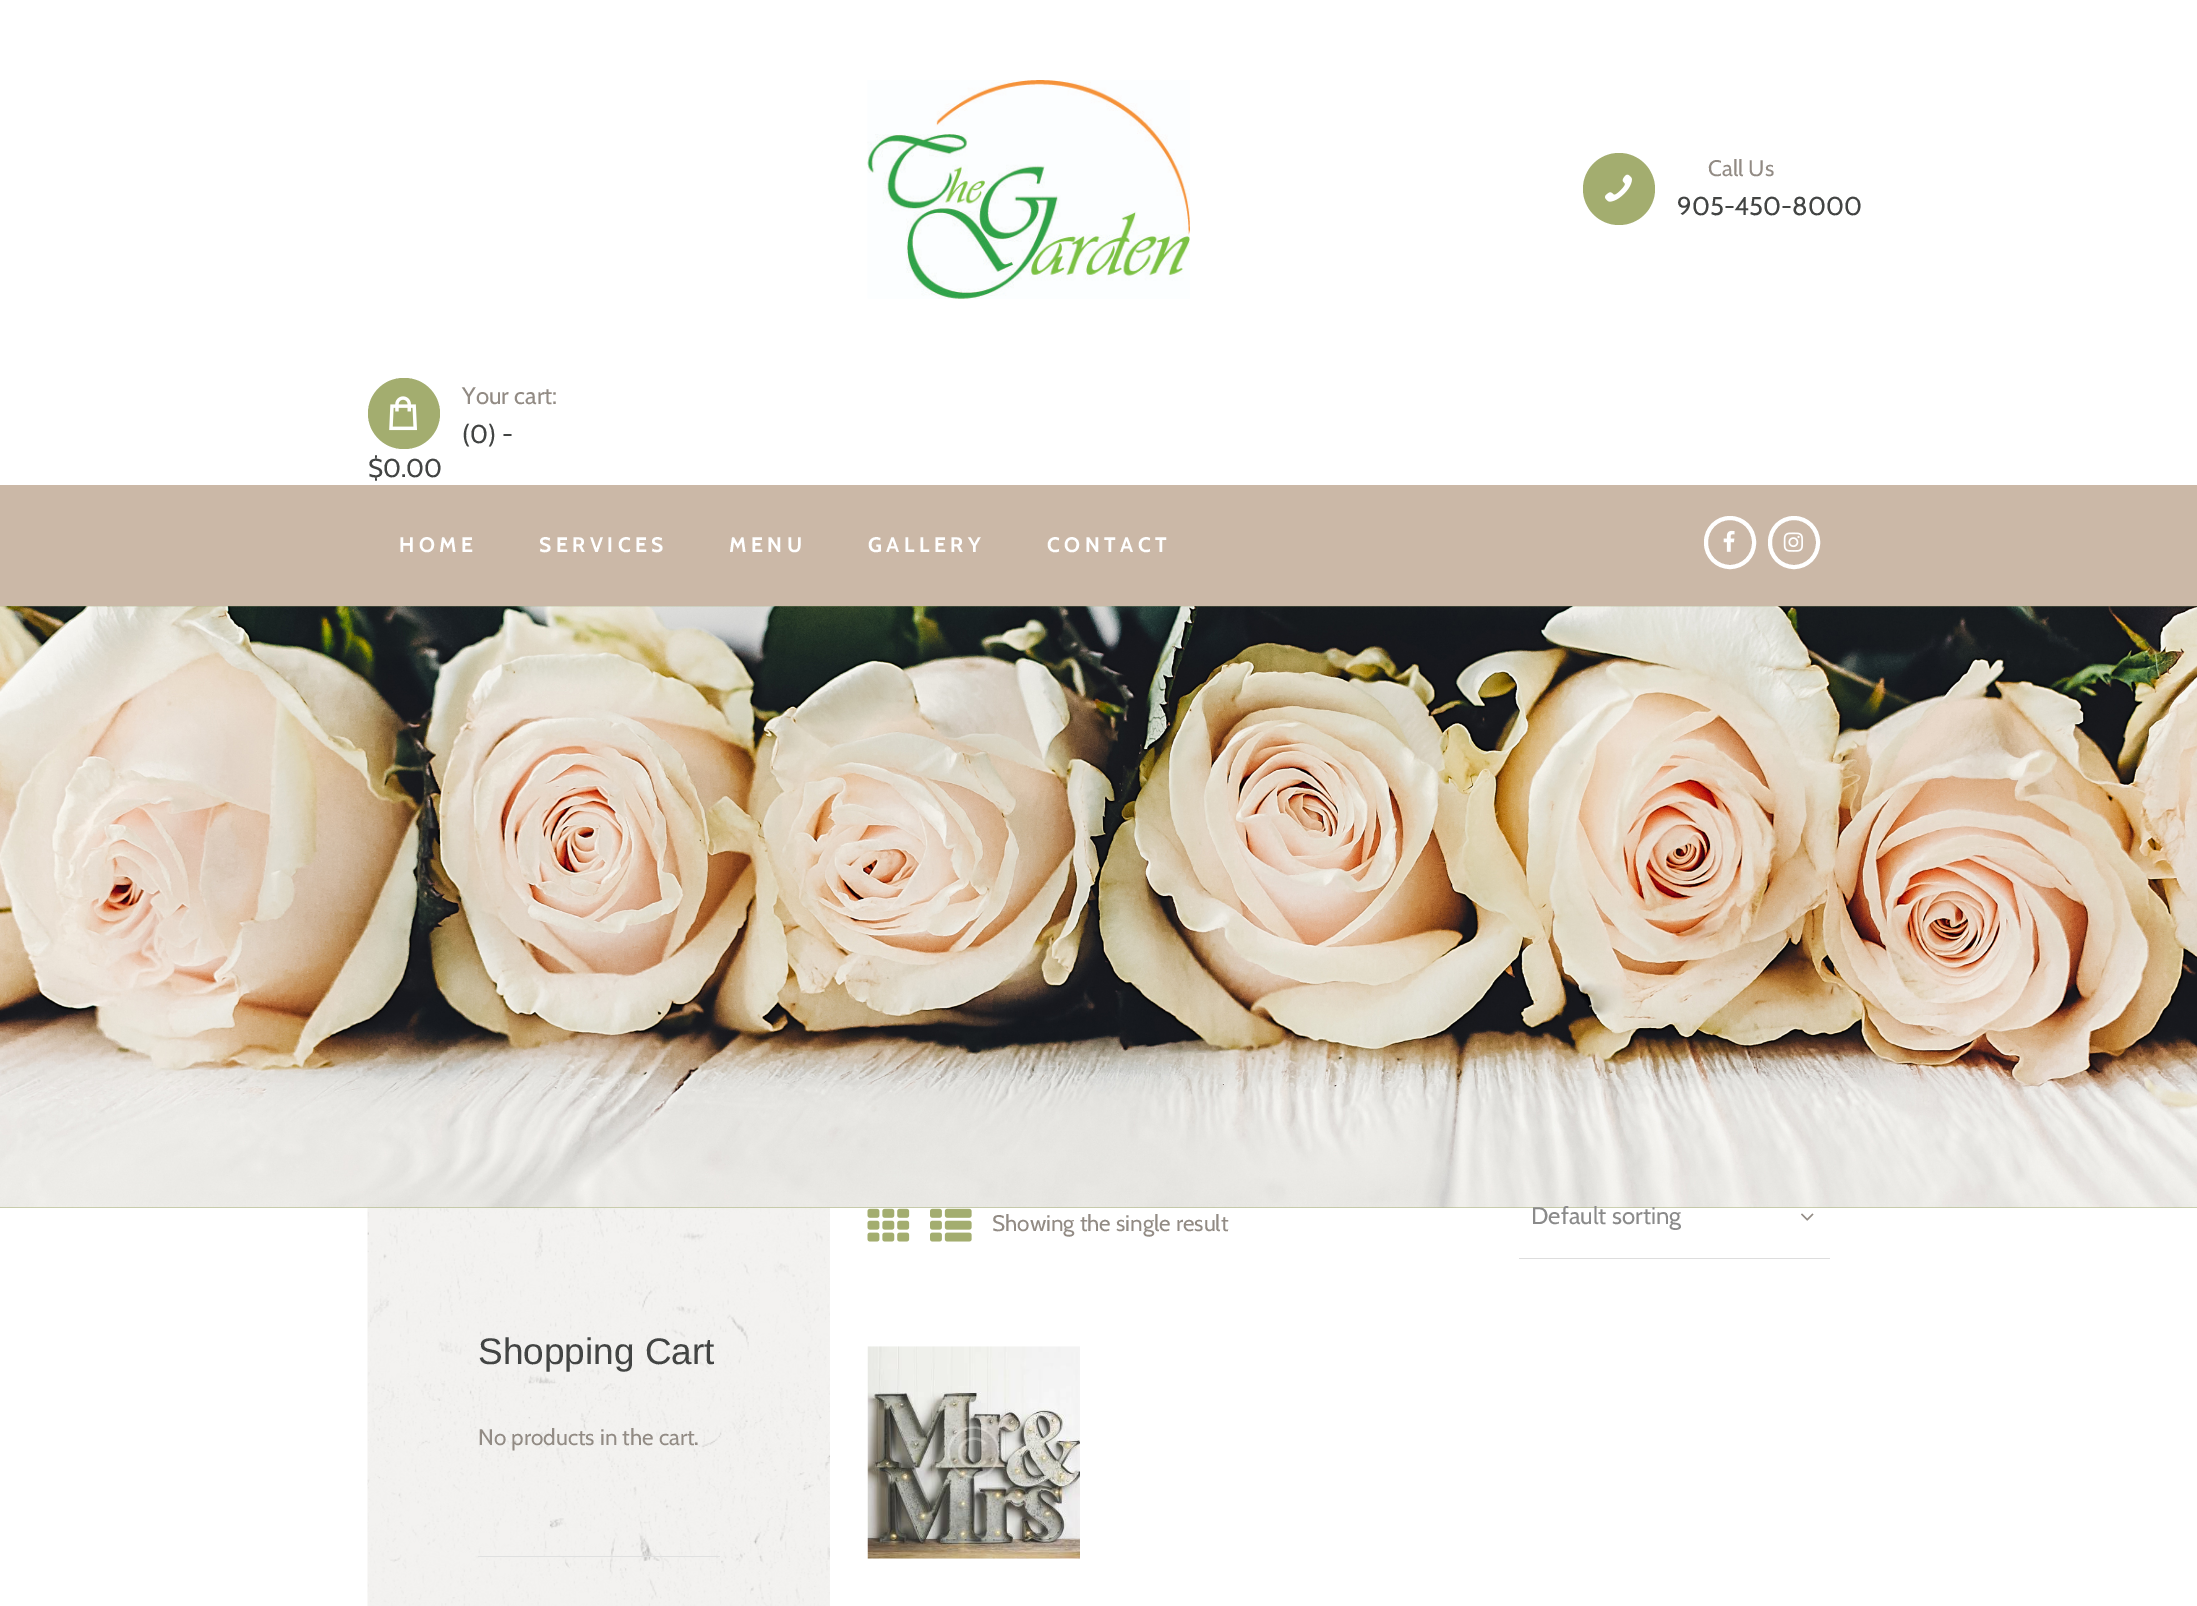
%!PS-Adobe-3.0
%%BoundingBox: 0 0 2197 1606
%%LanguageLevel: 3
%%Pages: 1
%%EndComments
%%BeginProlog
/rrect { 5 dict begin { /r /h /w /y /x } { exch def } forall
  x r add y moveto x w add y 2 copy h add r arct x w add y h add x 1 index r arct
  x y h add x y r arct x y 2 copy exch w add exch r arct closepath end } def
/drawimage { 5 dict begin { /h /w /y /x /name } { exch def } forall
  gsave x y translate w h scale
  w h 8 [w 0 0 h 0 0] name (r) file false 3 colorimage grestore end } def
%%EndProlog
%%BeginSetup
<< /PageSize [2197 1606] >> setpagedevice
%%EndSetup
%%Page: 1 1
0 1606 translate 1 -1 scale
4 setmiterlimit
1 setgray
0 0 2197 1606 rectfill
(images/1.raw) 867 80 323 219 drawimage
0.639 0.678 0.435 setrgbcolor
newpath 1619 189 36 0 360 arc closepath fill
(images/2.raw) 1605 174 27 28 drawimage
368 378 72 71 35.5 rrect fill
(images/3.raw) 389 396 28 35 drawimage
0.796 0.722 0.655 setrgbcolor
0 485 2197 121 rectfill
1 setgray
4 setlinewidth
1706 518 48 49 24 rrect stroke
(images/4.raw) 1723 530 12 22 drawimage
1770 518 48 49 24 rrect stroke
(images/5.raw) 1783 532 20 20 drawimage
0.639 0.678 0.435 setrgbcolor
0 606 2197 602 rectfill
(images/6.raw) 0 606 2197 602 drawimage
(images/7.raw) 867 1208 43 34 drawimage
(images/8.raw) 930 1208 42 34 drawimage
0.867 setgray
1519 1258 311 1 rectfill
(images/9.raw) 1801 1213 13 8 drawimage
(images/10.raw) 867 1346 213 213 drawimage
(images/11.raw) 367 1208 463 398 drawimage
0.875 0.878 0.878 setrgbcolor
478 1556 242 1 rectfill
/Cabin-Regular [22.5 0 0 -22.5 0 0] selectfont
0.573 0.545 0.518 setrgbcolor
1708 176 moveto (Call Us) show
/Cabin-Regular [25.75 0 0 -25.75 0 0] selectfont
0.259 0.267 0.263 setrgbcolor
1677 215 moveto (905-450-8000) show
/Cabin-Regular [24 0 0 -24 0 0] selectfont
0.573 0.545 0.518 setrgbcolor
462 404 moveto (Your cart:) show
/Cabin-Regular [25.75 0 0 -25.75 0 0] selectfont
0.259 0.267 0.263 setrgbcolor
462 443 moveto (\(0\) -) show
368 477 moveto ($0.00) show
/Cabin-Bold [21 0 0 -21 0 0] selectfont
1 setgray
399 552 moveto 4.5 0 (HOME) ashow
539 552 moveto 4.5 0 (SERVICES) ashow
729 552 moveto 4.5 0 (MENU) ashow
868 552 moveto 4.5 0 (GALLERY) ashow
1047 552 moveto 4.5 0 (CONTACT) ashow
/Cabin-Regular [22.5 0 0 -22.5 0 0] selectfont
0.573 0.545 0.518 setrgbcolor
992 1231 moveto (Showing the single result) show
/Cabin-Regular [24 0 0 -24 0 0] selectfont
0.541 setgray
1531 1224 moveto (Default sorting) show
/LiberationSans-Regular [37 0 0 -37 0 0] selectfont
0.259 0.267 0.263 setrgbcolor
478 1364 moveto (Shopping Cart) show
/Cabin-Regular [22.5 0 0 -22.5 0 0] selectfont
0.573 0.545 0.518 setrgbcolor
478 1445 moveto (No products in the cart.) show
showpage
%%EOF
